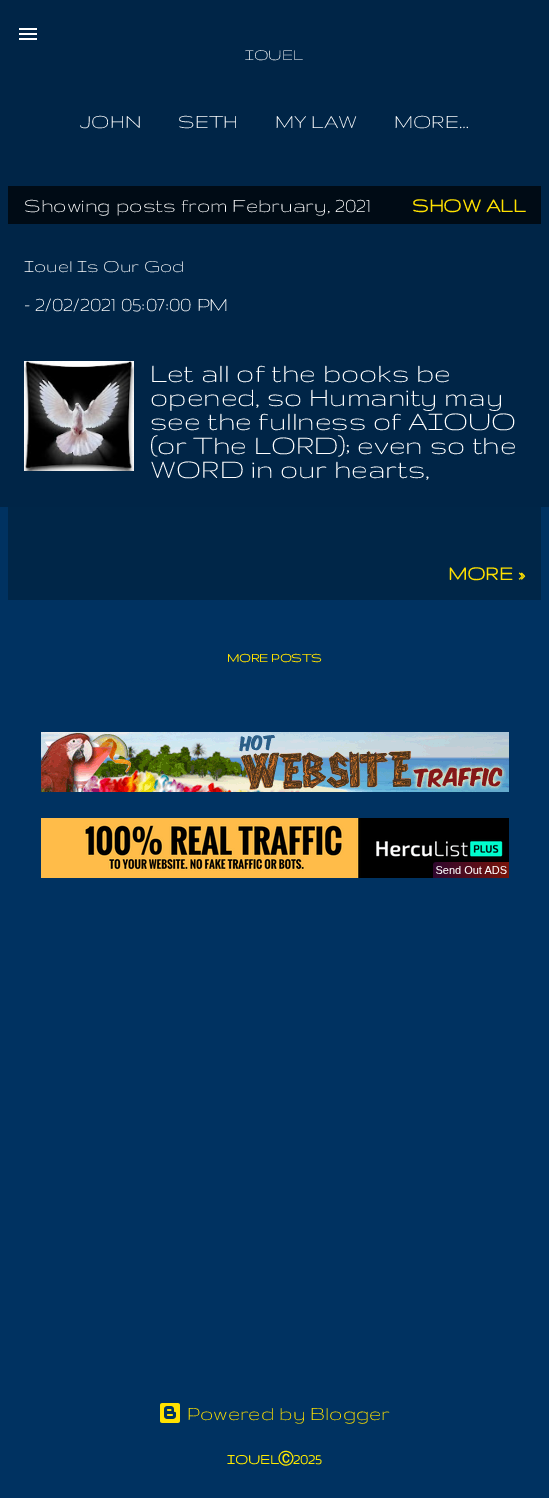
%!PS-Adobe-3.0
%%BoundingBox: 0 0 549 1498
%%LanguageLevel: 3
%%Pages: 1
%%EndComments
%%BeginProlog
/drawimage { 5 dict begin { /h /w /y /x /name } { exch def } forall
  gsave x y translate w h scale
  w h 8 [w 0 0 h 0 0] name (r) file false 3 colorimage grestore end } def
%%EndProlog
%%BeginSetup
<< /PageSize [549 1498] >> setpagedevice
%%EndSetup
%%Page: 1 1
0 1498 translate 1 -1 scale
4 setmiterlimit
0 0.196 0.38 setrgbcolor
0 0 549 1498 rectfill
0 0.145 0.278 setrgbcolor
0 0 549 507 rectfill
(images/1.raw) 19 28 18 12 drawimage
0 0.043 0.082 setrgbcolor
8 186 533 38 rectfill
0 0.149 0.282 setrgbcolor
8 507 533 93 rectfill
(images/2.raw) 24 361 110 110 drawimage
(images/3.raw) 41 732 468 60 drawimage
(images/4.raw) 41 818 468 60 drawimage
(images/5.raw) 160 1403 20 20 drawimage
/Gruppo-Regular [17.5 0 0 -17.5 0 0] selectfont
1 setgray
245 60 moveto (IOUEL) show
/Gruppo-Regular [22 0 0 -22 0 0] selectfont
80 128 moveto (JOHN) show
178 128 moveto (SETH) show
275 128 moveto (MY LAW) show
394 128 moveto (MORE…) show
24 212 moveto (Showing posts from February, 2021) show
/Gruppo-Bold [22 0 0 -22 0 0] selectfont
1 0.882 0 setrgbcolor
412 212 moveto (SHOW ALL) show
/Gruppo-Regular [20 0 0 -20 0 0] selectfont
1 setgray
24 272 moveto (Iouel Is Our God) show
/Gruppo-Regular [22 0 0 -22 0 0] selectfont
24 311 moveto (- 2/02/2021 05:07:00 PM) show
/Gruppo-Regular [30 0 0 -30 0 0] selectfont
150 382 moveto (Let all of the books be) show
150 406 moveto (opened, so Humanity may) show
150 430 moveto (see the fullness of AIOUO) show
150 454 moveto (\(or The LORD\); even so the) show
150 478 moveto (WORD in our hearts,) show
/Gruppo-Bold [22 0 0 -22 0 0] selectfont
1 0.882 0 setrgbcolor
448 580 moveto (MORE ») show
/Gruppo-Bold [14 0 0 -14 0 0] selectfont
227 662 moveto (MORE POSTS) show
/Gruppo-Regular [22 0 0 -22 0 0] selectfont
187 1420 moveto (Powered by Blogger) show
/Gruppo-Bold [15.5 0 0 -15.5 0 0] selectfont
1 0.918 0 setrgbcolor
227 1464 moveto (IOUEL) show
/WenQuanYiZenHei-Bold [15.5 0 0 -15.5 0 0] selectfont
278 1464 moveto (Ⓒ) show
/Gruppo-Bold [15.5 0 0 -15.5 0 0] selectfont
293 1464 moveto (2025) show
showpage
%%EOF
